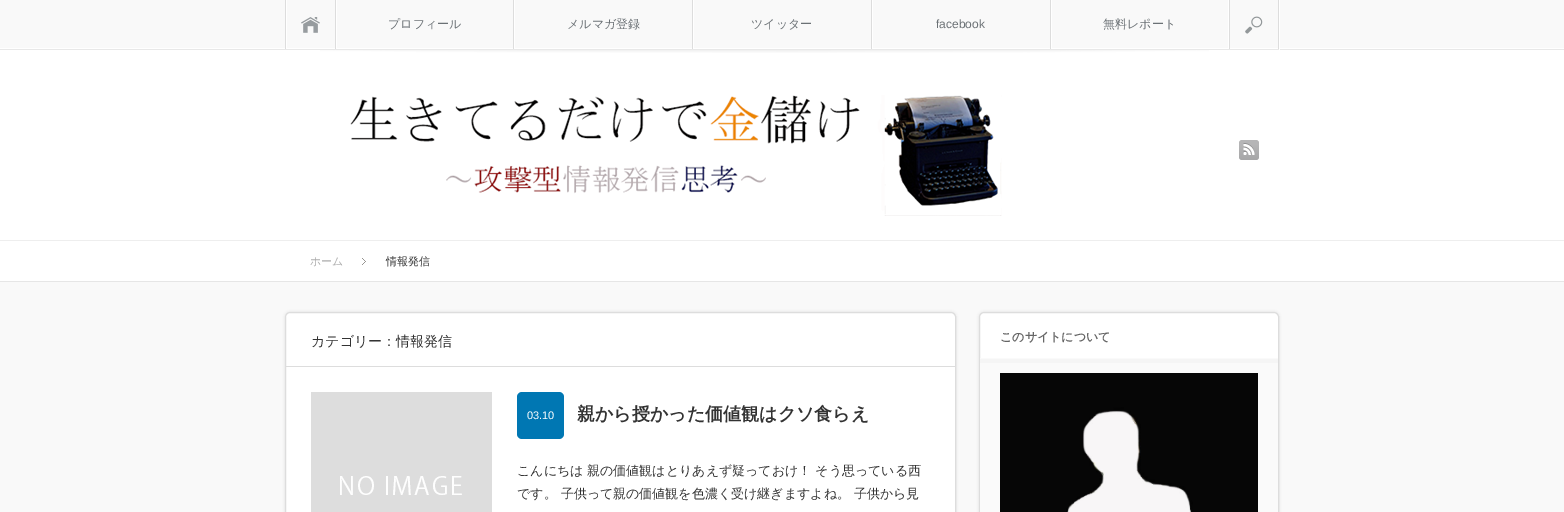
%!PS-Adobe-3.0
%%BoundingBox: 0 0 1564 512
%%LanguageLevel: 3
%%Pages: 1
%%EndComments
%%BeginProlog
/setalpha { dup .setfillconstantalpha .setstrokeconstantalpha } def
/rrect { 5 dict begin { /r /h /w /y /x } { exch def } forall
  x r add y moveto x w add y 2 copy h add r arct x w add y h add x 1 index r arct
  x y h add x y r arct x y 2 copy exch w add exch r arct closepath end } def
/softshadow { 12 dict begin { /a /b /q /h /w /y /x } { exch def } forall gsave /was 0 def
  9 -2 -9 { dup b mul 4 div /e exch def 1 sub .425 mul 2.718 exch exp 1 add a .99 .min exch div /now exch def
    1 1 now sub 1 was sub div sub setalpha /was now def
    w h .min e 2 mul add 0 gt { x e sub y e sub w e 2 mul add h e 2 mul add
      q e add b .6 mul add w h .min 2 div e add .min 0 .max rrect fill } if } for grestore end } def
/drawimage { 5 dict begin { /h /w /y /x /name } { exch def } forall
  gsave x y translate w h scale
  w h 8 [w 0 0 h 0 0] name (r) file false 3 colorimage grestore end } def
%%EndProlog
%%BeginSetup
<< /PageSize [1564 512] /PageUsesTransparency true >> setpagedevice
%%EndSetup
%%Page: 1 1
0 .pushpdf14devicefilter
0 512 translate 1 -1 scale
4 setmiterlimit
0.976 setgray
0 0 1564 512 rectfill
(images/1.raw) 0 48 1564 2 drawimage
1 setgray
1279 0 1 50 rectfill
(images/2.raw) 301 17 19 16 drawimage
gsave
286 0 50 49 rectclip
newpath 187 -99 moveto 435 -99 lineto 435 148 lineto 187 148 lineto closepath 287 -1 moveto 337 -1 lineto 337 48 lineto 287 48 lineto closepath eofill
grestore
0.867 setgray
285 0 1 49 rectfill
(images/3.raw) 1245 16 18 18 drawimage
gsave
1228 0 50 49 rectclip
1 setgray
newpath 1129 -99 moveto 1377 -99 lineto 1377 148 lineto 1129 148 lineto closepath 1229 -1 moveto 1279 -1 lineto 1279 48 lineto 1229 48 lineto closepath eofill
grestore
1229 0 1 49 rectfill
gsave
336 0 177 49 rectclip
1 setgray
newpath 237 -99 moveto 612 -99 lineto 612 148 lineto 237 148 lineto closepath 337 -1 moveto 514 -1 lineto 514 48 lineto 337 48 lineto closepath eofill
grestore
335 0 1 49 rectfill
gsave
514 0 178 49 rectclip
1 setgray
newpath 415 -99 moveto 791 -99 lineto 791 148 lineto 415 148 lineto closepath 515 -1 moveto 693 -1 lineto 693 48 lineto 515 48 lineto closepath eofill
grestore
513 0 1 49 rectfill
gsave
693 0 178 49 rectclip
1 setgray
newpath 594 -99 moveto 970 -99 lineto 970 148 lineto 594 148 lineto closepath 694 -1 moveto 872 -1 lineto 872 48 lineto 694 48 lineto closepath eofill
grestore
692 0 1 49 rectfill
gsave
872 0 178 49 rectclip
1 setgray
newpath 773 -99 moveto 1149 -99 lineto 1149 148 lineto 773 148 lineto closepath 873 -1 moveto 1051 -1 lineto 1051 48 lineto 873 48 lineto closepath eofill
grestore
871 0 1 49 rectfill
gsave
1051 0 177 49 rectclip
1 setgray
newpath 952 -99 moveto 1327 -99 lineto 1327 148 lineto 952 148 lineto closepath 1052 -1 moveto 1229 -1 lineto 1229 48 lineto 1052 48 lineto closepath eofill
grestore
1050 0 1 49 rectfill
1278 0 1 49 rectfill
(images/5.raw) 0 50 1564 232 drawimage
(images/4.raw) 320 50 889 3 drawimage
(images/6.raw) 350 95 652 121 drawimage
(images/7.raw) 1239 140 20 20 drawimage
(images/8.raw) 362 258 4 7 drawimage
285 312 671 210 5 1.5 1 softshadow
1 setgray
285.5 312.5 670 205 4.5 rrect gsave fill grestore
0.867 setgray
stroke
286 366 669 1 rectfill
(images/9.raw) 311 392 181 120 drawimage
0 0.467 0.702 setrgbcolor
517 392 47 47 5 rrect fill
0.867 setgray
979 312 300 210 5 1.5 1 softshadow
1 setgray
979.5 312.5 299 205 4.5 rrect gsave fill grestore
0.867 setgray
stroke
0.98 setgray
980 358 298 1 rectfill
980 363 298 149 rectfill
0.961 setgray
980 359 298 4 rectfill
(images/10.raw) 1000 373 258 139 drawimage
/WenQuanYiZenHei-Medium [12 0 0 -12 0 0] selectfont
0.42 0.443 0.459 setrgbcolor
388 28 moveto (プロフィール) show
567 28 moveto (メルマガ登録) show
751 28 moveto (ツイッター) show
/LiberationSans-Regular [12 0 0 -12 0 0] selectfont
936 28 moveto (facebook) show
/WenQuanYiZenHei-Medium [12 0 0 -12 0 0] selectfont
1103 28 moveto (無料レポート) show
/WenQuanYiZenHei-Medium [11 0 0 -11 0 0] selectfont
0.667 setgray
310 265 moveto (ホーム) show
0.2 setgray
386 265 moveto (情報発信) show
/WenQuanYiZenHei-Medium [14 0 0 -14 0 0] selectfont
311 346 moveto (カテゴリー：情報発信) show
/LiberationSans-Regular [11 0 0 -11 0 0] selectfont
1 setgray
527 419 moveto (03.10) show
/WenQuanYiZenHei-Bold [18 0 0 -18 0 0] selectfont
0.2 setgray
577 420 moveto (親から授かった価値観はクソ食らえ) show
/WenQuanYiZenHei-Medium [13 0 0 -13 0 0] selectfont
517 475 moveto (こんにちは) show
587 475 moveto (親の価値観はとりあえず疑っておけ！ そう思っている西) show
517 498 moveto (です。 子供って親の価値観を色濃く受け継ぎますよね。 子供から見) show
/WenQuanYiZenHei-Bold [12 0 0 -12 0 0] selectfont
0.4 setgray
1000 341 moveto (このサイトについて) show
.poppdf14devicefilter showpage
%%EOF
